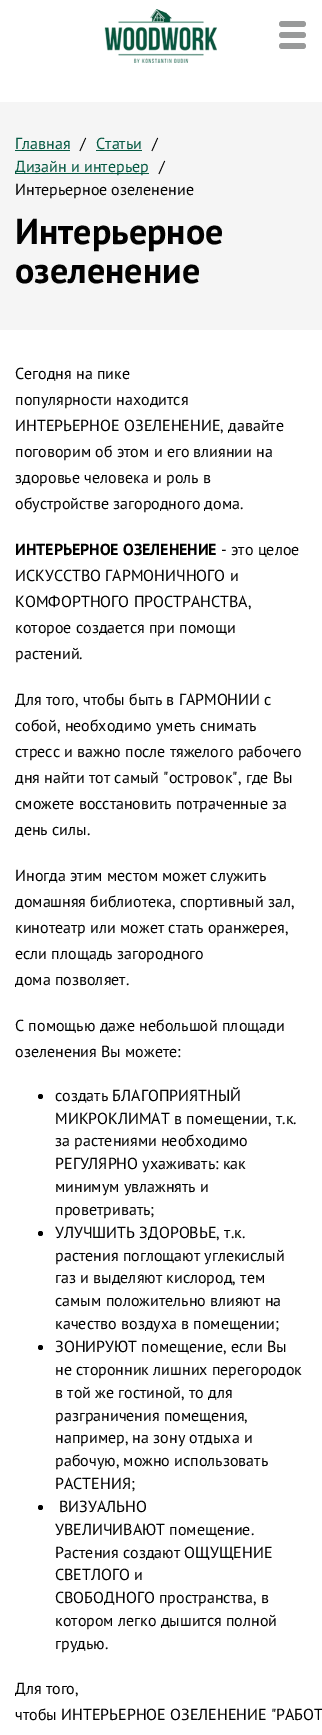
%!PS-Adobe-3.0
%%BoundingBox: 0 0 322 1735
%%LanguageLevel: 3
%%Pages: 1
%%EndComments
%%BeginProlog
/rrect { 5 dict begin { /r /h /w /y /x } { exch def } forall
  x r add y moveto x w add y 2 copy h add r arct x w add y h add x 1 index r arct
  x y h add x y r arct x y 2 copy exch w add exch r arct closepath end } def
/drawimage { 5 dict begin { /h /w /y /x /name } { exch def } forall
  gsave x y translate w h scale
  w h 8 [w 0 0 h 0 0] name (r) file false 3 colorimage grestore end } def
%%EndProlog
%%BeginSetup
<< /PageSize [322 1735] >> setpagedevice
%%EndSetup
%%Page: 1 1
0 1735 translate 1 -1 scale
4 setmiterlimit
1 setgray
0 0 322 1735 rectfill
(images/1.raw) 104 9 113 54 drawimage
0.6 0.604 0.604 setrgbcolor
279 32 27 6 3 rrect fill
279 21 27 6 3 rrect fill
279 43 27 6 3 rrect fill
0.961 setgray
0 102 322 228 rectfill
0.016 0.349 0.259 setrgbcolor
15 150 55 1 rectfill
96 150 46 1 rectfill
15 173 134 1 rectfill
0.004 setgray
newpath 40.5 1096.5 2.5 0 360 arc closepath fill
newpath 40.5 1233.5 2.5 0 360 arc closepath fill
newpath 40.5 1347.5 2.5 0 360 arc closepath fill
newpath 40.5 1507.5 2.5 0 360 arc closepath fill
/PTSans-Regular [16 0 0 -16 0 0] selectfont
0.016 0.349 0.259 setrgbcolor
15 149 moveto (Главная) show
0.004 setgray
80 149 moveto (/) show
0.016 0.349 0.259 setrgbcolor
96 149 moveto (Статьи) show
0.004 setgray
152 149 moveto (/) show
0.016 0.349 0.259 setrgbcolor
15 172 moveto (Дизайн и интерьер) show
0.004 setgray
159 172 moveto (/) show
15 195 moveto (Интерьерное озеленение) show
/PTSans-Bold [36 0 0 -36 0 0] selectfont
15 244 moveto (Интерьерное) show
15 283 moveto (озеленение) show
/PTSans-Regular [16 0 0 -16 0 0] selectfont
15 379 moveto (Сегодня на пике) show
15 405 moveto (популярности находится) show
15 431 moveto (ИНТЕРЬЕРНОЕ ОЗЕЛЕНЕНИЕ, давайте) show
15 457 moveto (поговорим об этом и его влиянии на) show
15 483 moveto (здоровье человека и роль в) show
15 509 moveto (обустройстве загородного дома.) show
/PTSans-Bold [16 0 0 -16 0 0] selectfont
15 555 moveto (ИНТЕРЬЕРНОЕ ОЗЕЛЕНЕНИЕ) show
/PTSans-Regular [16 0 0 -16 0 0] selectfont
221 555 moveto (- это целое) show
15 581 moveto (ИСКУССТВО ГАРМОНИЧНОГО и) show
15 607 moveto (КОМФОРТНОГО ПРОСТРАНСТВА,) show
15 633 moveto (которое создается при помощи) show
15 659 moveto (растений.) show
15 705 moveto (Для того, чтобы быть в ГАРМОНИИ с) show
15 731 moveto (собой, необходимо уметь снимать) show
15 757 moveto (стресс и важно после тяжелого рабочего) show
15 783 moveto (дня найти тот самый "островок", где Вы) show
15 809 moveto (сможете восстановить потраченные за) show
15 835 moveto (день силы.) show
15 881 moveto (Иногда этим местом может служить) show
15 907 moveto (домашняя библиотека, спортивный зал,) show
15 933 moveto (кинотеатр или может стать оранжерея,) show
15 959 moveto (если площадь загородного) show
15 985 moveto (дома позволяет.) show
15 1031 moveto (С помощью даже небольшой площади) show
15 1057 moveto (озеленения Вы можете:) show
55 1101 moveto (создать БЛАГОПРИЯТНЫЙ) show
55 1124 moveto (МИКРОКЛИМАТ в помещении, т.к.) show
55 1146 moveto (за растениями необходимо) show
55 1169 moveto (РЕГУЛЯРНО ухаживать: как) show
55 1192 moveto (минимум увлажнять и) show
55 1215 moveto (проветривать;) show
55 1238 moveto (УЛУЧШИТЬ ЗДОРОВЬЕ, т.к.) show
55 1261 moveto (растения поглощают углекислый) show
55 1283 moveto (газ и выделяют кислород, тем) show
55 1306 moveto (самым положительно влияют на) show
55 1329 moveto (качество воздуха в помещении;) show
55 1352 moveto (ЗОНИРУЮТ помещение, если Вы) show
55 1375 moveto (не сторонник лишних перегородок) show
55 1398 moveto (в той же гостиной, то для) show
55 1421 moveto (разграничения помещения,) show
55 1443 moveto (например, на зону отдыха и) show
55 1466 moveto (рабочую, можно использовать) show
55 1489 moveto (РАСТЕНИЯ;) show
59 1512 moveto (ВИЗУАЛЬНО) show
55 1535 moveto (УВЕЛИЧИВАЮТ помещение.) show
55 1558 moveto (Растения создают ОЩУЩЕНИЕ) show
55 1580 moveto (СВЕТЛОГО и) show
55 1603 moveto (СВОБОДНОГО пространства, в) show
55 1626 moveto (котором легко дышится полной) show
55 1649 moveto (грудью.) show
15 1694 moveto (Для того,) show
15 1720 moveto (чтобы ИНТЕРЬЕРНОЕ ОЗЕЛЕНЕНИЕ "РАБОТ) show
showpage
%%EOF
